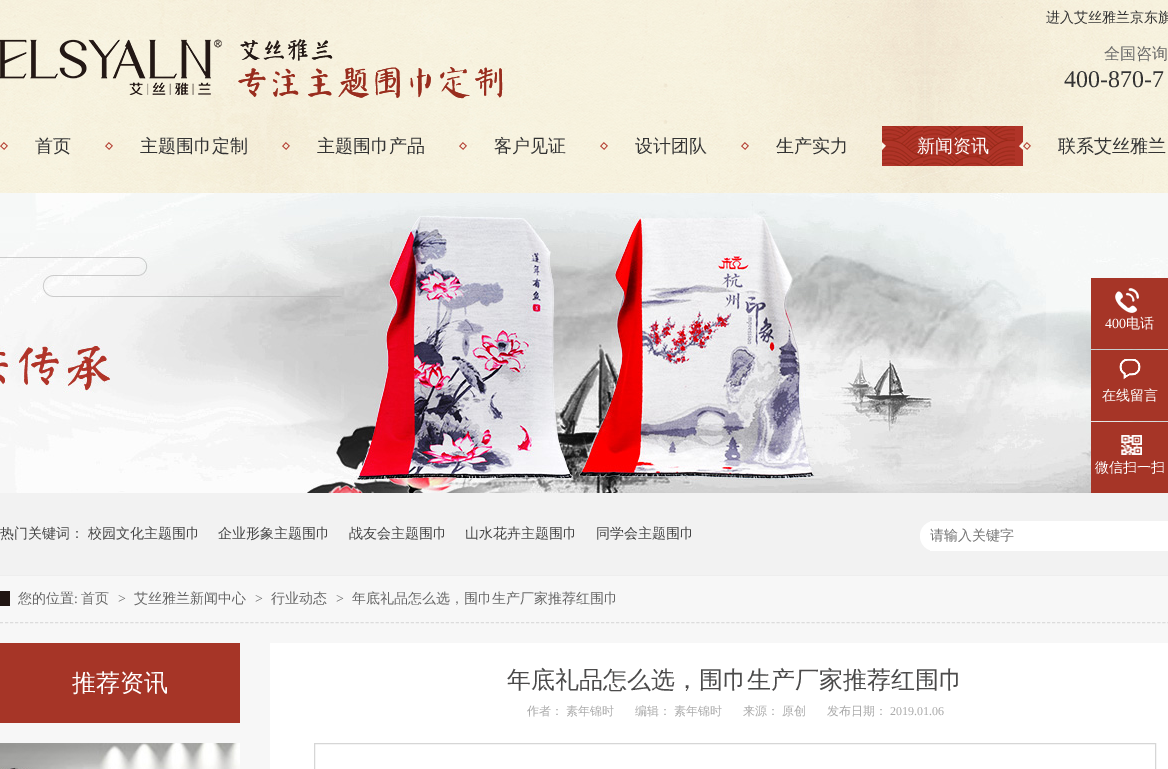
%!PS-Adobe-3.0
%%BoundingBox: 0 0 1168 769
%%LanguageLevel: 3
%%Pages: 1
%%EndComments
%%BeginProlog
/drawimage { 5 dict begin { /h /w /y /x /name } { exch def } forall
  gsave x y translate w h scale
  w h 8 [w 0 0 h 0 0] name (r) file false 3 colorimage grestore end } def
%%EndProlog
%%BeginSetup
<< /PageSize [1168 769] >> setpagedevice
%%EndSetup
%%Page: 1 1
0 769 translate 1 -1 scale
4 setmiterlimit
0.969 setgray
0 0 1168 769 rectfill
(images/1.raw) 0 0 1168 193 drawimage
(images/2.raw) 0 39 222 56 drawimage
(images/3.raw) 238 39 265 60 drawimage
(images/4.raw) 0 142 8 8 drawimage
(images/5.raw) 105 142 8 8 drawimage
(images/6.raw) 282 142 8 8 drawimage
(images/7.raw) 459 142 8 8 drawimage
(images/8.raw) 600 142 8 8 drawimage
(images/9.raw) 741 142 8 8 drawimage
(images/10.raw) 882 126 41 40 drawimage
(images/11.raw) 923 126 100 40 drawimage
(images/12.raw) 1023 142 8 8 drawimage
(images/13.raw) 0 193 1168 300 drawimage
0.651 0.208 0.153 setrgbcolor
1091 278 77 71 rectfill
(images/14.raw) 1115 288 24 25 drawimage
1091 350 77 71 rectfill
(images/15.raw) 1119 359 22 21 drawimage
1091 422 77 71 rectfill
(images/16.raw) 1121 435 21 20 drawimage
0.949 setgray
0 493 1168 82 rectfill
0.933 setgray
0 575 1168 1 rectfill
1 setgray
newpath 935 521 moveto 1168 521 lineto 1168 551 lineto 935 551 lineto 926.5 551 920 544.5 920 536 curveto 920 527.5 926.5 521 935 521 curveto closepath fill
930 521 3 30 rectfill
0.863 setgray
[3 2.01] 0 setdash
newpath 0 622.5 moveto 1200 622.5 lineto stroke
0.125 0.082 0.071 setrgbcolor
0 591 10 15 rectfill
0.651 0.208 0.153 setrgbcolor
0 643 240 80 rectfill
(images/17.raw) 0 743 240 26 drawimage
1 setgray
270 643 898 126 rectfill
0.839 setgray
[] 0 setdash
314.5 743.5 841 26 rectstroke
/WenQuanYiZenHei-Medium [14 0 0 -14 0 0] selectfont
0.2 setgray
1046 22 moveto (进入艾丝雅兰京东旗) show
/WenQuanYiZenHei-Medium [16 0 0 -16 0 0] selectfont
0.4 setgray
1104 59 moveto (全国咨询) show
/LiberationSerif-Regular [24 0 0 -24 0 0] selectfont
0.2 setgray
1064 87 moveto (400-870-7) show
/WenQuanYiZenHei-Medium [18 0 0 -18 0 0] selectfont
35 152 moveto (首页) show
140 152 moveto (主题围巾定制) show
317 152 moveto (主题围巾产品) show
494 152 moveto (客户见证) show
635 152 moveto (设计团队) show
776 152 moveto (生产实力) show
1 setgray
917 152 moveto (新闻资讯) show
0.2 setgray
1058 152 moveto (联系艾丝雅兰) show
/LiberationSerif-Regular [14 0 0 -14 0 0] selectfont
1 setgray
1105 328 moveto (400) show
/WenQuanYiZenHei-Medium [14 0 0 -14 0 0] selectfont
1126 328 moveto (电话) show
1102 400 moveto (在线留言) show
1095 472 moveto (微信扫一扫) show
0.267 setgray
0 538 moveto (热门关键词：) show
88 538 moveto (校园文化主题围巾) show
218 538 moveto (企业形象主题围巾) show
349 538 moveto (战友会主题围巾) show
465 538 moveto (山水花卉主题围巾) show
596 538 moveto (同学会主题围巾) show
0.459 setgray
930 540 moveto (请输入关键字) show
0.4 setgray
18 603 moveto (您的位置) show
/LiberationSerif-Regular [14 0 0 -14 0 0] selectfont
74 603 moveto (:) show
/WenQuanYiZenHei-Medium [14 0 0 -14 0 0] selectfont
81 603 moveto (首页) show
/LiberationSerif-Regular [14 0 0 -14 0 0] selectfont
118 603 moveto (>) show
/WenQuanYiZenHei-Medium [14 0 0 -14 0 0] selectfont
134 603 moveto (艾丝雅兰新闻中心) show
/LiberationSerif-Regular [14 0 0 -14 0 0] selectfont
255 603 moveto (>) show
/WenQuanYiZenHei-Medium [14 0 0 -14 0 0] selectfont
271 603 moveto (行业动态) show
/LiberationSerif-Regular [14 0 0 -14 0 0] selectfont
336 603 moveto (>) show
/WenQuanYiZenHei-Medium [14 0 0 -14 0 0] selectfont
352 603 moveto (年底礼品怎么选，围巾生产厂家推荐红围巾) show
/WenQuanYiZenHei-Medium [24 0 0 -24 0 0] selectfont
1 setgray
72 691 moveto (推荐资讯) show
0.294 0.29 0.29 setrgbcolor
507 688 moveto (年底礼品怎么选，围巾生产厂家推荐红围巾) show
/WenQuanYiZenHei-Medium [12 0 0 -12 0 0] selectfont
0.667 setgray
527 715 moveto (作者：) show
566 715 moveto (素年锦时) show
635 715 moveto (编辑：) show
674 715 moveto (素年锦时) show
743 715 moveto (来源：) show
782 715 moveto (原创) show
827 715 moveto (发布日期：) show
/LiberationSerif-Regular [12 0 0 -12 0 0] selectfont
890 715 moveto (2019.01.06) show
showpage
%%EOF
